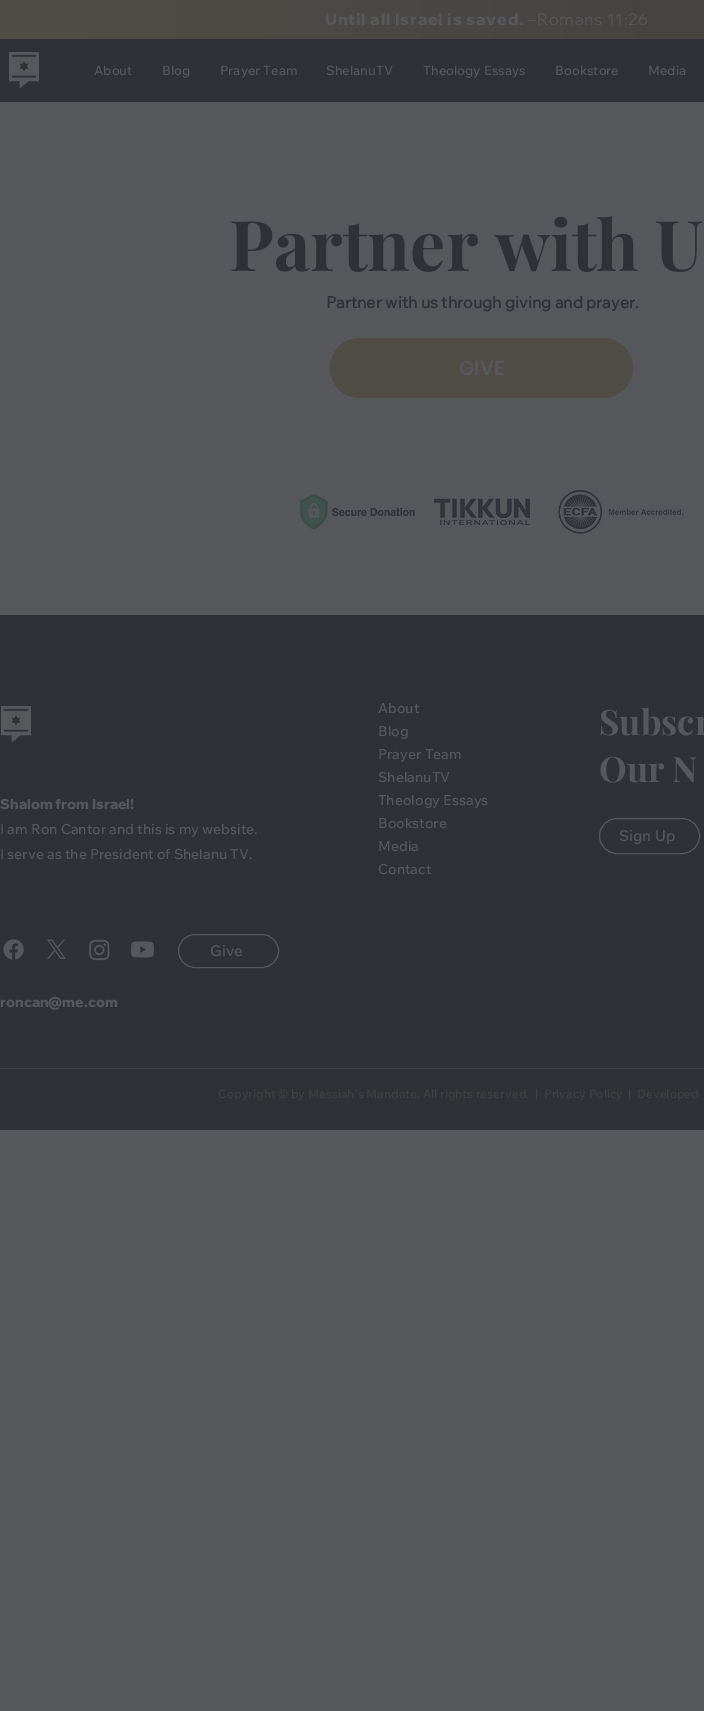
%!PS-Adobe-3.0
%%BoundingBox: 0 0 704 1711
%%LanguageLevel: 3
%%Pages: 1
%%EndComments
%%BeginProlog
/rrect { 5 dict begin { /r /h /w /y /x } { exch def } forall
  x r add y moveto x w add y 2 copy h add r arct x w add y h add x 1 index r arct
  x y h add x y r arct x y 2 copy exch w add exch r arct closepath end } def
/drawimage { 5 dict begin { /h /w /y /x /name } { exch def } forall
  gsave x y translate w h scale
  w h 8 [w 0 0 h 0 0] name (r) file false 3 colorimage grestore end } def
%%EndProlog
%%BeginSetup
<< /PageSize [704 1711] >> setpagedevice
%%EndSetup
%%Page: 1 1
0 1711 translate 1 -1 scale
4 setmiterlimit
0.341 0.345 0.361 setrgbcolor
0 0 704 1711 rectfill
gsave newpath 0 0 moveto 704 0 lineto 704 39 lineto 0 39 lineto closepath clip newpath
<< /ShadingType 2 /ColorSpace /DeviceRGB /Coords [0 20 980 19] /Extend [true true] /Function << /FunctionType 2 /Domain [0 1] /C0 [0.314 0.302 0.278] /C1 [0.255 0.255 0.255] /N 1 >> >> shfill grestore
0.188 0.192 0.212 setrgbcolor
0 39 704 63 rectfill
(images/1.raw) 9 52 30 36 drawimage
0.314 0.302 0.278 setrgbcolor
330 338 303 60 30 rrect fill
(images/2.raw) 300 490 384 44 drawimage
0.188 0.192 0.212 setrgbcolor
0 615 704 515 rectfill
(images/1.raw) 1 706 30 36 drawimage
0.341 0.345 0.361 setrgbcolor
599.5 818.5 100 35 17.5 rrect stroke
(images/3.raw) 3 939 21 21 drawimage
(images/4.raw) 47 939 19 20 drawimage
(images/5.raw) 89 939 21 22 drawimage
(images/6.raw) 130 941 25 17 drawimage
178.5 934.5 100 33 16.5 rrect stroke
0.235 0.235 0.255 setrgbcolor
0 1068 704 1 rectfill
/WixMadeforDisplay-ExtraBold [16 0 0 -16 0 0] selectfont
0.341 0.345 0.361 setrgbcolor
325 25 moveto 0.8 0 (Until all Israel is saved.) ashow
/WixMadeforDisplay-Regular [16 0 0 -16 0 0] selectfont
528 25 moveto 0.8 0 (–Romans 11:26) ashow
/WixMadeforText-Medium [13 0 0 -13 0 0] selectfont
94 75 moveto (About) show
162 75 moveto (Blog) show
220 75 moveto (Prayer Team) show
326 75 moveto (ShelanuTV) show
423 75 moveto (Theology Essays) show
555 75 moveto (Bookstore) show
648 75 moveto (Media) show
/PlayfairDisplay-Bold [70 0 0 -70 0 0] selectfont
0.188 0.192 0.212 setrgbcolor
229 271 moveto (Partner with U) show
/WixMadeforText-Bold [16 0 0 -16 0 0] selectfont
326 308 moveto (Partner with us through giving and prayer.) show
/Poppins-SemiBold [20 0 0 -20 0 0] selectfont
0.341 0.345 0.361 setrgbcolor
459 375 moveto (GIVE) show
/WixMadeforText-Medium [14 0 0 -14 0 0] selectfont
378 713 moveto (About) show
378 736 moveto (Blog) show
378 759 moveto (Prayer Team) show
378 782 moveto (ShelanuTV) show
378 805 moveto (Theology Essays) show
378 828 moveto (Bookstore) show
378 851 moveto (Media) show
378 874 moveto (Contact) show
/PlayfairDisplay-Bold [35 0 0 -35 0 0] selectfont
599 735 moveto (Subscr) show
599 782 moveto (Our N) show
/WixMadeforDisplay-ExtraBold [14 0 0 -14 0 0] selectfont
0 809 moveto (Shalom from Israel!) show
/WixMadeforText-Medium [14 0 0 -14 0 0] selectfont
0 834 moveto (I am Ron Cantor and this is my website.) show
0 859 moveto (I serve as the President of Shelanu TV.) show
/WixMadeforText-Medium [15 0 0 -15 0 0] selectfont
619 841 moveto (Sign Up) show
210 956 moveto (Give) show
/WixMadeforDisplay-ExtraBold [14 0 0 -14 0 0] selectfont
0 1007 moveto (roncan@me.com) show
/WixMadeforText-Medium [12 0 0 -12 0 0] selectfont
0.259 0.255 0.255 setrgbcolor
218 1098 moveto (Copyright © by Messiah's Mandate. All rights reserved.  |) show
544 1098 moveto (Privacy Policy  |  Developed) show
showpage
%%EOF
